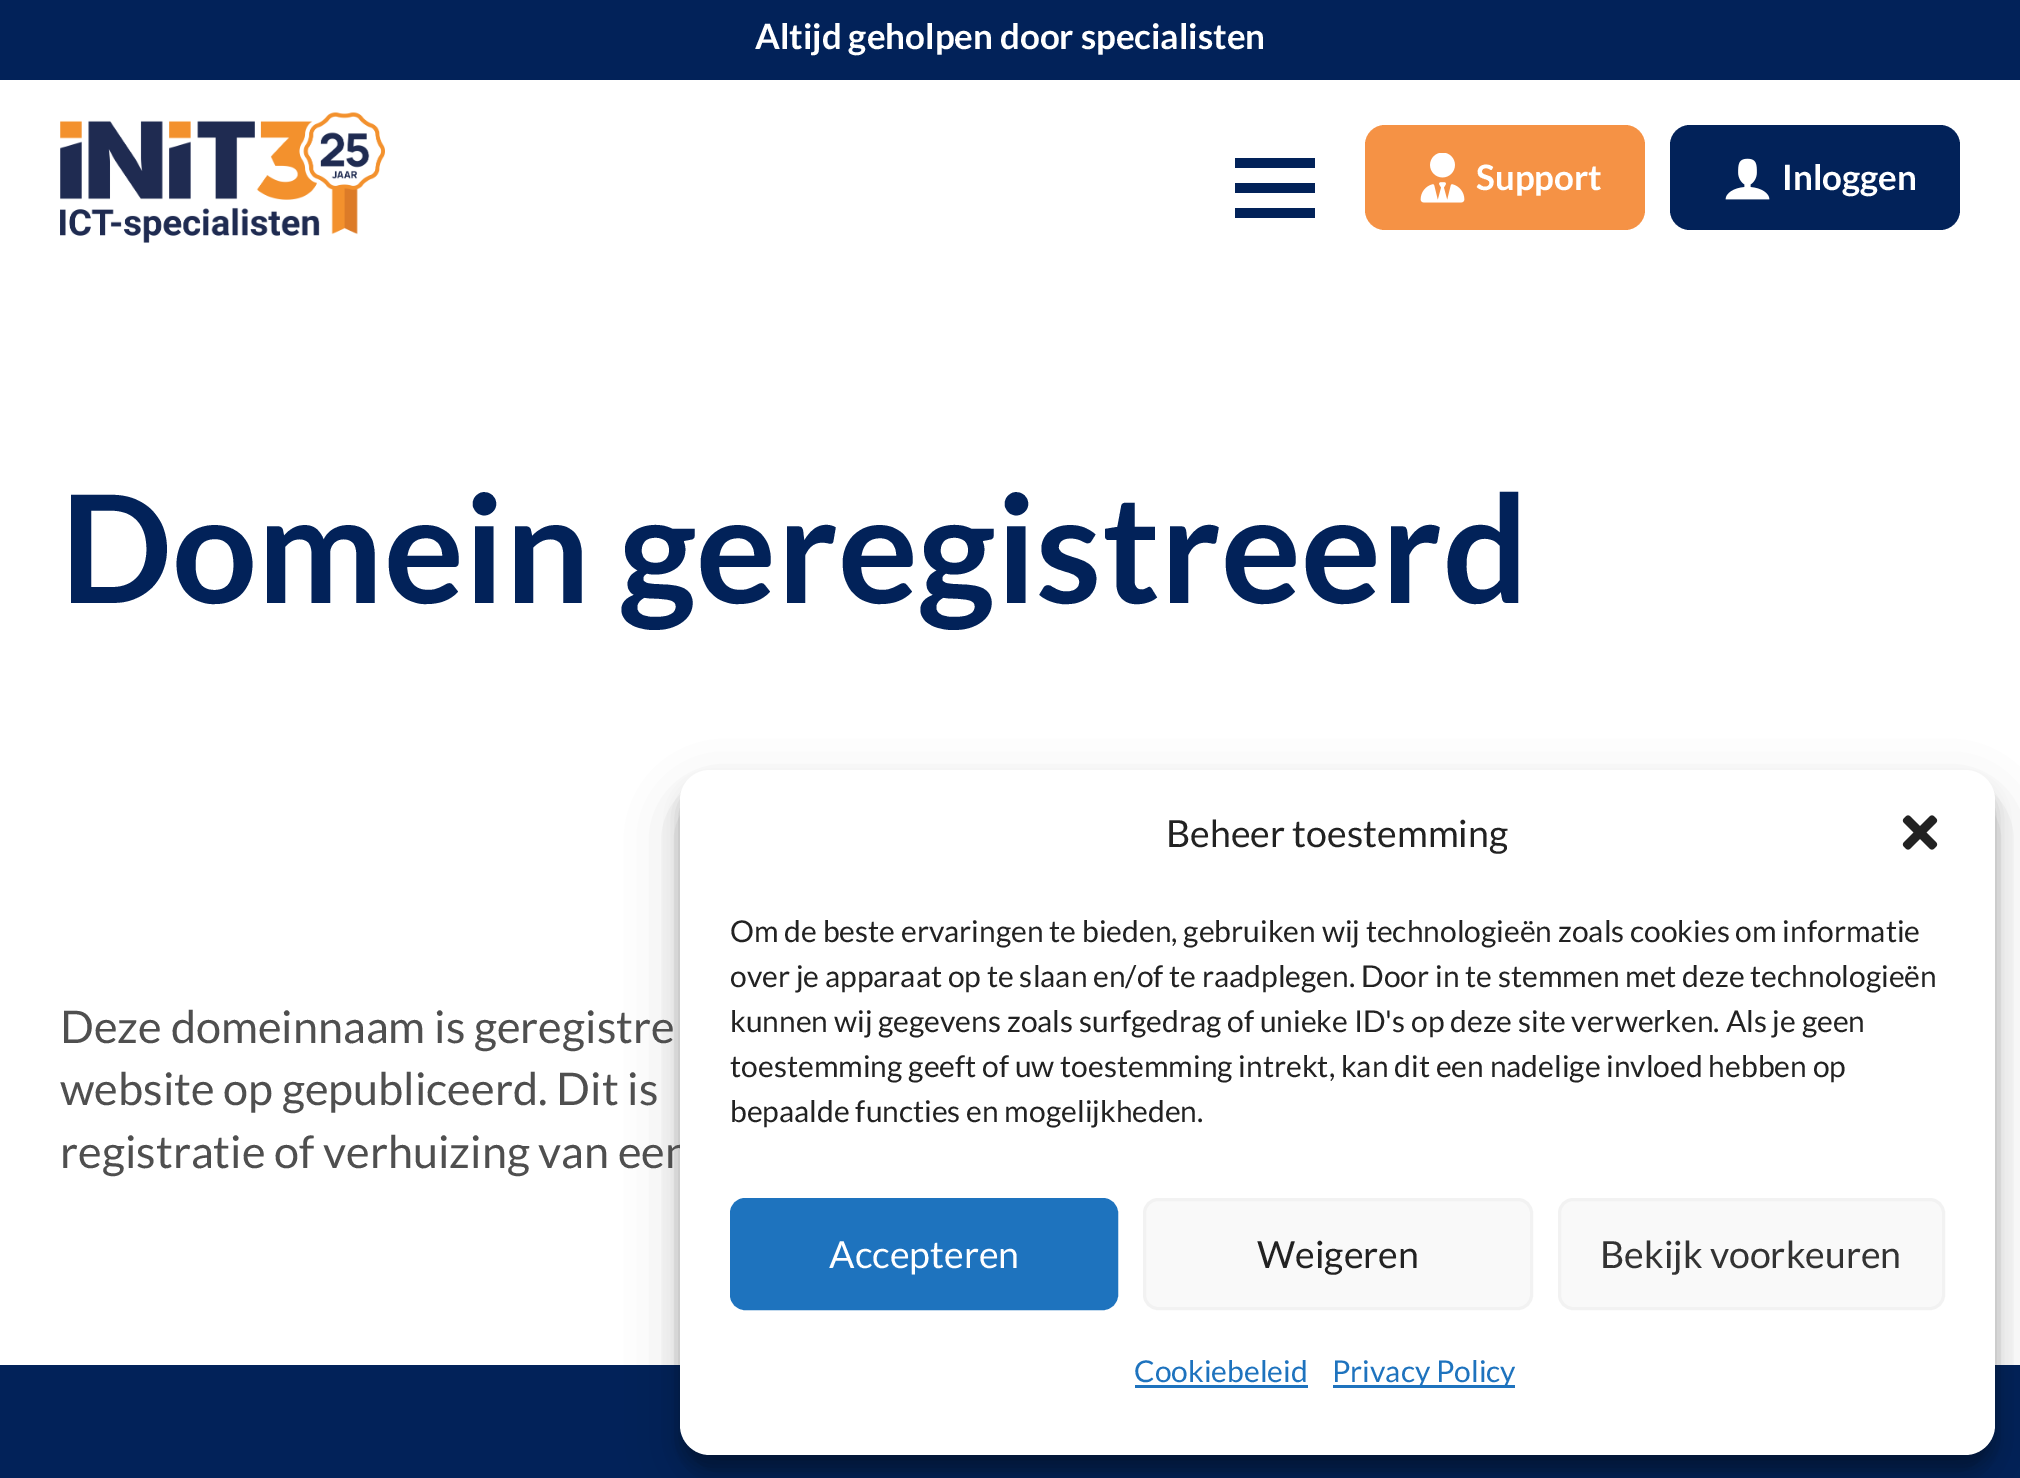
%!PS-Adobe-3.0
%%BoundingBox: 0 0 2020 1478
%%LanguageLevel: 3
%%Pages: 1
%%EndComments
%%BeginProlog
/setalpha { dup .setfillconstantalpha .setstrokeconstantalpha } def
/rrect { 5 dict begin { /r /h /w /y /x } { exch def } forall
  x r add y moveto x w add y 2 copy h add r arct x w add y h add x 1 index r arct
  x y h add x y r arct x y 2 copy exch w add exch r arct closepath end } def
/softshadow { 12 dict begin { /a /b /q /h /w /y /x } { exch def } forall gsave /was 0 def
  9 -2 -9 { dup b mul 4 div /e exch def 1 sub .425 mul 2.718 exch exp 1 add a .99 .min exch div /now exch def
    1 1 now sub 1 was sub div sub setalpha /was now def
    w h .min e 2 mul add 0 gt { x e sub y e sub w e 2 mul add h e 2 mul add
      q e add b .6 mul add w h .min 2 div e add .min 0 .max rrect fill } if } for grestore end } def
/drawimage { 5 dict begin { /h /w /y /x /name } { exch def } forall
  gsave x y translate w h scale
  w h 8 [w 0 0 h 0 0] name (r) file false 3 colorimage grestore end } def
%%EndProlog
%%BeginSetup
<< /PageSize [2020 1478] /PageUsesTransparency true >> setpagedevice
%%EndSetup
%%Page: 1 1
0 .pushpdf14devicefilter
0 1478 translate 1 -1 scale
4 setmiterlimit
1 setgray
0 0 2020 1478 rectfill
0.008 0.133 0.349 setrgbcolor
0 0 2020 80 rectfill
(images/1.raw) 60 112 325 131 drawimage
1235 183 80 10 rectfill
1235 158 80 10 rectfill
1235 208 80 10 rectfill
0.961 0.573 0.271 setrgbcolor
1365 125 280 105 20 rrect fill
(images/2.raw) 1420 153 45 50 drawimage
0.008 0.133 0.349 setrgbcolor
1670 125 290 105 20 rrect fill
(images/3.raw) 1725 158 45 42 drawimage
0 1365 2020 113 rectfill
0 setgray
680 785 1315 685 30 7.5 0.23 softshadow
680 795 1315 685 30 25 0.19 softshadow
/Lato-Bold [35 0 0 -35 0 0] selectfont
1 setgray
755 49 moveto (Altijd geholpen door specialisten) show
1476 190 moveto (Support) show
1782 190 moveto (Inloggen) show
/Lato-Bold [150 0 0 -150 0 0] selectfont
0.008 0.133 0.349 setrgbcolor
60 603 moveto (Domein geregistreerd) show
/Lato-Regular [45 0 0 -45 0 0] selectfont
0.31 setgray
60 1043 moveto (Deze domeinnaam is geregistre) show
60 1105 moveto (website op gepubliceerd. Dit is) show
60 1168 moveto (registratie of verhuizing van een) show
1 setgray
680 770 1315 685 30 rrect fill
/Lato-Regular [37.5 0 0 -37.5 0 0] selectfont
0.133 setgray
1166 847 moveto (Beheer toestemming) show
(images/4.raw) 1902 815 36 35 drawimage
/Lato-Regular [30 0 0 -30 0 0] selectfont
730 942 moveto (Om de beste ervaringen te bieden, gebruiken wij technologieën zoals cookies om informatie) show
730 987 moveto (over je apparaat op te slaan en/of te raadplegen. Door in te stemmen met deze technologieën) show
730 1032 moveto (kunnen wij gegevens zoals surfgedrag of unieke ID's op deze site verwerken. Als je geen) show
730 1077 moveto (toestemming geeft of uw toestemming intrekt, kan dit een nadelige invloed hebben op) show
730 1122 moveto (bepaalde functies en mogelijkheden.) show
0.118 0.451 0.745 setrgbcolor
731.5 1199.5 385 109 13.5 rrect gsave fill grestore
3 setlinewidth
stroke
/Lato-Regular [37.5 0 0 -37.5 0 0] selectfont
1 setgray
829 1268 moveto (Accepteren) show
0.976 setgray
1144.5 1199.5 387 109 13.5 rrect gsave fill grestore
0.949 setgray
stroke
0.133 setgray
1257 1268 moveto (Weigeren) show
0.976 setgray
1559.5 1199.5 384 109 13.5 rrect gsave fill grestore
0.949 setgray
stroke
0.2 setgray
1600 1268 moveto (Bekijk voorkeuren) show
/Lato-Regular [30 0 0 -30 0 0] selectfont
0.118 0.451 0.745 setrgbcolor
1134 1382 moveto (Cookiebeleid) show
1135 1385 173 3 rectfill
1333 1385 182 3 rectfill
1332 1382 moveto (Privacy Policy) show
.poppdf14devicefilter showpage
%%EOF
